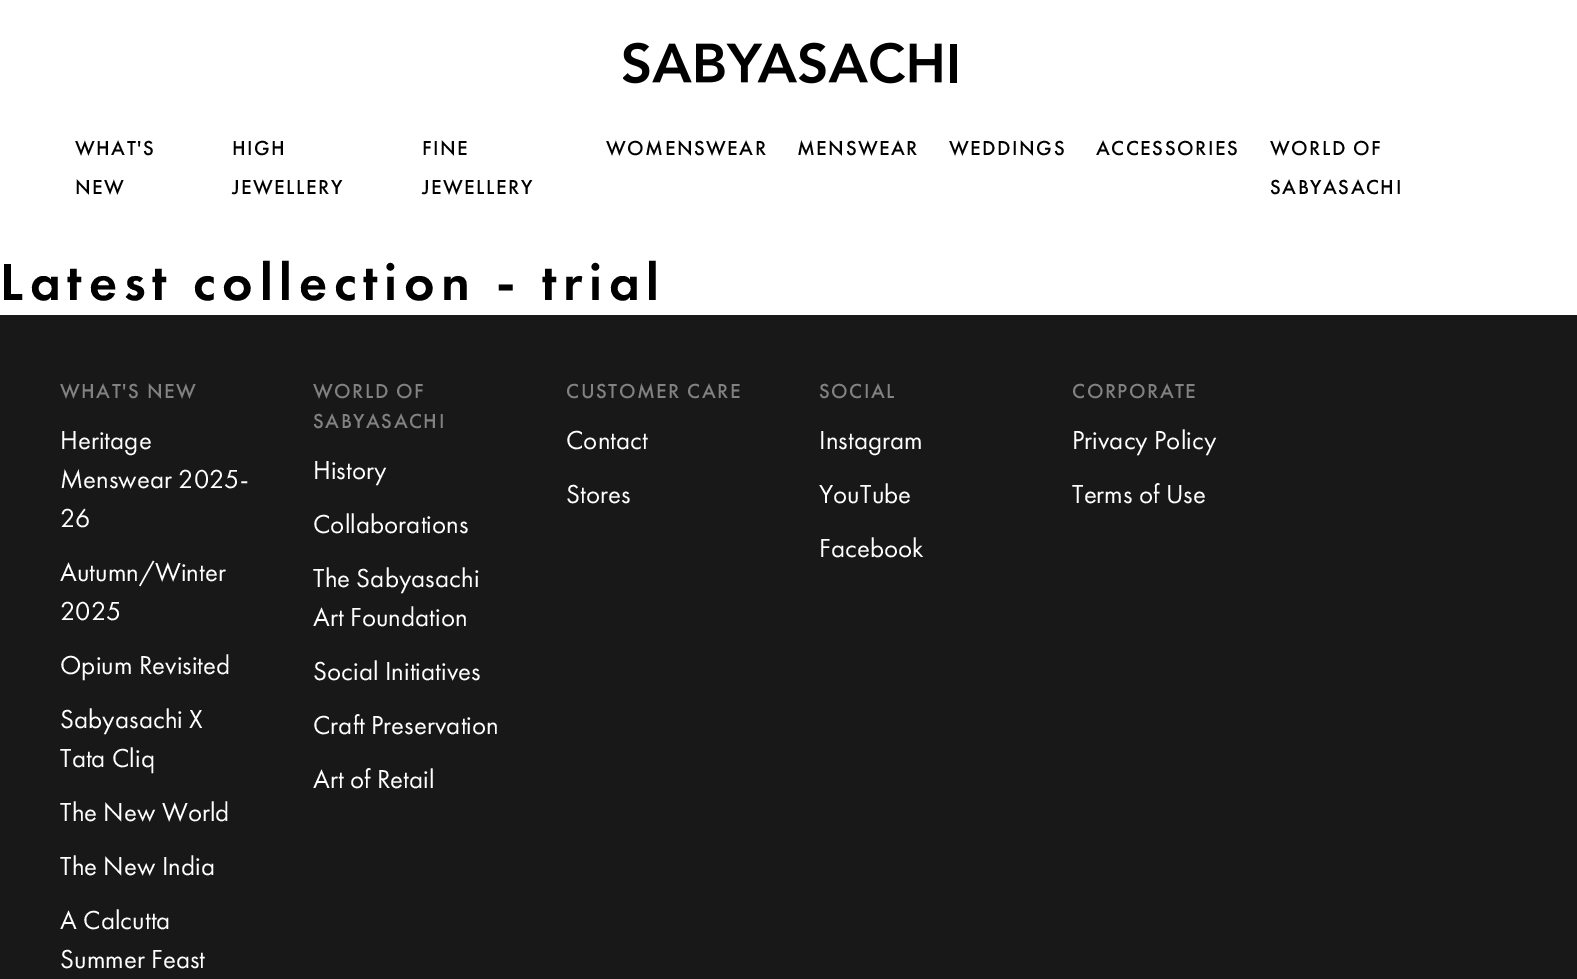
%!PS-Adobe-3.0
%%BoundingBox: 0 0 1577 979
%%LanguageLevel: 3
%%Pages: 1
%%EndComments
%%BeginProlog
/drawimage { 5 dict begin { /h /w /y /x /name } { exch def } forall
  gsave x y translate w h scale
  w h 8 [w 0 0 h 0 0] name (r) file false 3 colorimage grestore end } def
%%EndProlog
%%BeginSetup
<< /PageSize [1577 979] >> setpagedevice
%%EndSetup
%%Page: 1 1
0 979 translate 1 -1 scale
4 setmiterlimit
1 setgray
0 0 1577 979 rectfill
(images/1.raw) 623 42 334 42 drawimage
0.094 setgray
0 315 1577 664 rectfill
/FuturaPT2-Medium [21 0 0 -21 0 0] selectfont
0 setgray
75 155 moveto 1.5 0 (WHAT'S) ashow
75 194 moveto 1.5 0 (NEW) ashow
232 155 moveto 1.5 0 (HIGH) ashow
232 194 moveto 1.5 0 (JEWELLERY) ashow
422 155 moveto 1.5 0 (FINE) ashow
422 194 moveto 1.5 0 (JEWELLERY) ashow
606 155 moveto 1.5 0 (WOMENSWEAR) ashow
797 155 moveto 1.5 0 (MENSWEAR) ashow
949 155 moveto 1.5 0 (WEDDINGS) ashow
1096 155 moveto 1.5 0 (ACCESSORIES) ashow
1270 155 moveto 1.5 0 (WORLD OF) ashow
1270 194 moveto 1.5 0 (SABYASACHI) ashow
/FuturaPT-Medium [54 0 0 -54 0 0] selectfont
0 300 moveto 6.75 0 (Latest collection - trial) ashow
/FuturaPT2-Medium [21 0 0 -21 0 0] selectfont
0.51 setgray
60 398 moveto 1.5 0 (WHAT'S NEW) ashow
/FuturaPT-Regular [27 0 0 -27 0 0] selectfont
1 setgray
60 449 moveto (Heritage) show
60 488 moveto (Menswear 2025-) show
60 527 moveto (26) show
60 581 moveto (Autumn/Winter) show
60 620 moveto (2025) show
60 674 moveto (Opium Revisited) show
60 728 moveto (Sabyasachi X) show
60 767 moveto (Tata Cliq) show
60 821 moveto (The New World) show
60 875 moveto (The New India) show
60 929 moveto (A Calcutta) show
60 968 moveto (Summer Feast) show
/FuturaPT2-Medium [21 0 0 -21 0 0] selectfont
0.51 setgray
313 398 moveto 1.5 0 (WORLD OF) ashow
313 428 moveto 1.5 0 (SABYASACHI) ashow
/FuturaPT-Regular [27 0 0 -27 0 0] selectfont
1 setgray
313 479 moveto (History) show
313 533 moveto (Collaborations) show
313 587 moveto (The Sabyasachi) show
313 626 moveto (Art Foundation) show
313 680 moveto (Social Initiatives) show
313 734 moveto (Craft Preservation) show
313 788 moveto (Art of Retail) show
/FuturaPT2-Medium [21 0 0 -21 0 0] selectfont
0.51 setgray
566 398 moveto 1.5 0 (CUSTOMER CARE) ashow
/FuturaPT-Regular [27 0 0 -27 0 0] selectfont
1 setgray
566 449 moveto (Contact) show
566 503 moveto (Stores) show
/FuturaPT2-Medium [21 0 0 -21 0 0] selectfont
0.51 setgray
819 398 moveto 1.5 0 (SOCIAL) ashow
/FuturaPT-Regular [27 0 0 -27 0 0] selectfont
1 setgray
819 449 moveto (Instagram) show
819 503 moveto (YouTube) show
819 557 moveto (Facebook) show
/FuturaPT2-Medium [21 0 0 -21 0 0] selectfont
0.51 setgray
1072 398 moveto 1.5 0 (CORPORATE) ashow
/FuturaPT-Regular [27 0 0 -27 0 0] selectfont
1 setgray
1072 449 moveto (Privacy Policy) show
1072 503 moveto (Terms of Use) show
showpage
%%EOF
